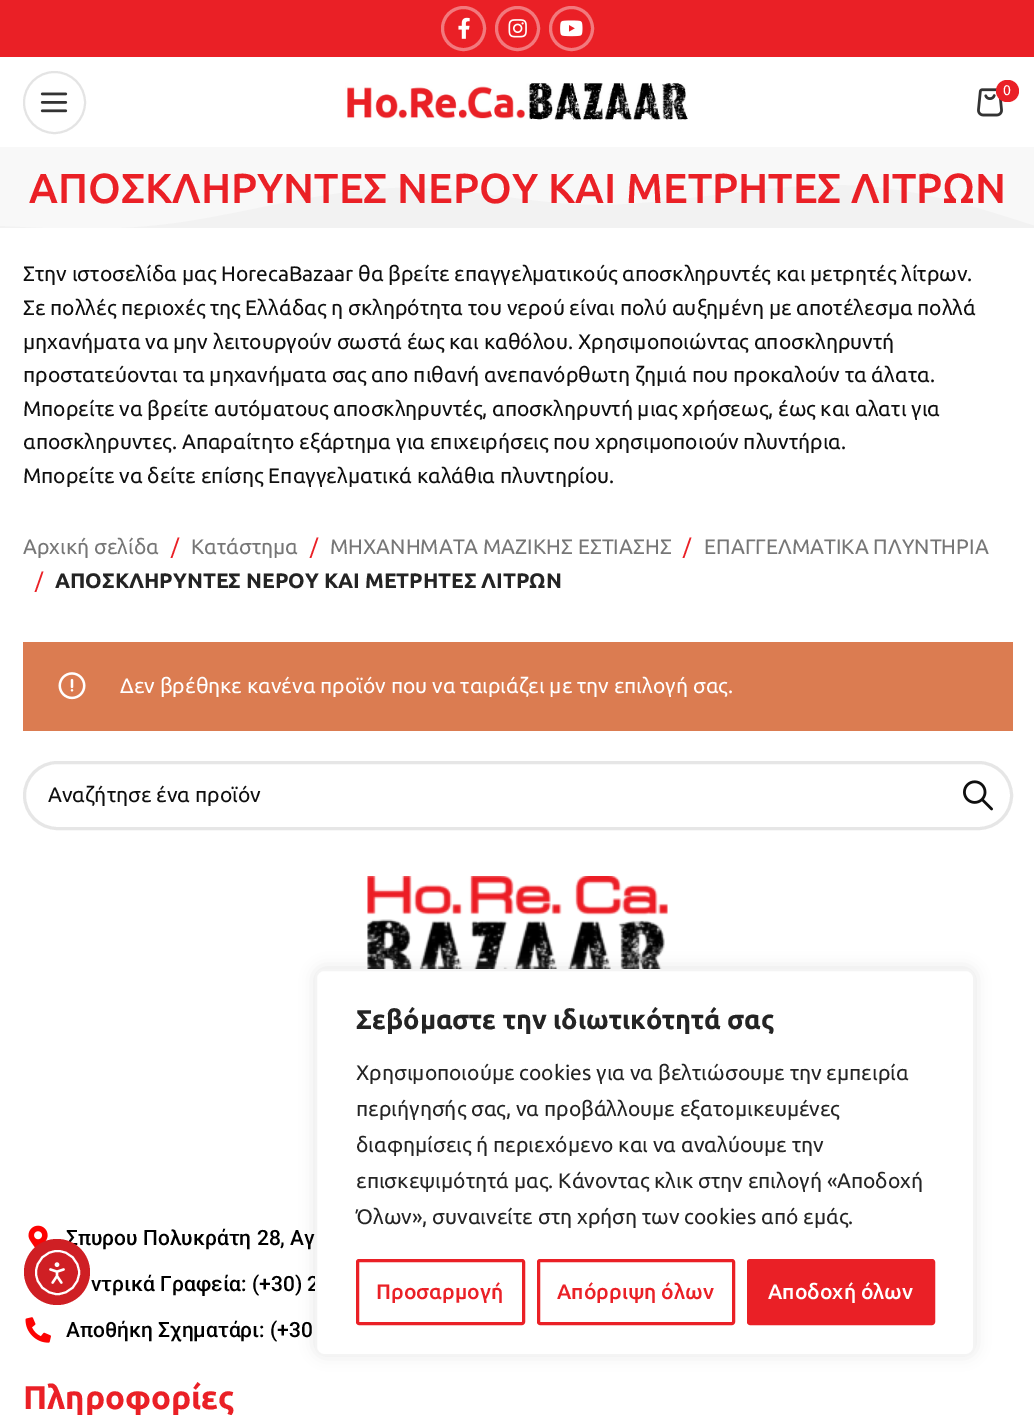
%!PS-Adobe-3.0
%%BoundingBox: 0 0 1034 1415
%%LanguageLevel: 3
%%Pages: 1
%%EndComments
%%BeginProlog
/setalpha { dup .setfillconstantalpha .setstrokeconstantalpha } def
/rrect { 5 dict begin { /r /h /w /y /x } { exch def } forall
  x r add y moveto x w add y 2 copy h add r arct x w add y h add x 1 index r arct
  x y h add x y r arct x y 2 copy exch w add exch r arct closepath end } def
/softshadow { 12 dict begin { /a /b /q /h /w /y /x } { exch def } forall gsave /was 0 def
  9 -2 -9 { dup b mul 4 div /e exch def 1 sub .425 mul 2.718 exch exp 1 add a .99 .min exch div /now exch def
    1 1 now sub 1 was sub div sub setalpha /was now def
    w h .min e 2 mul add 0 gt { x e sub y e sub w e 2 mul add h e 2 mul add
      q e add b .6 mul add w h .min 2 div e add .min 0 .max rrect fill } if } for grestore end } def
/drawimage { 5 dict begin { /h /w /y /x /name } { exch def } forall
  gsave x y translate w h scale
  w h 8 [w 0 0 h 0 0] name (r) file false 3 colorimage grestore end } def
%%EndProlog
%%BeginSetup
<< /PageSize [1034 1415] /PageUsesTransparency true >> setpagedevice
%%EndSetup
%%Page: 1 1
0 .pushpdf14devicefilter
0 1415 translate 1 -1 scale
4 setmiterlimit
1 setgray
0 0 1034 1415 rectfill
0.918 0.125 0.149 setrgbcolor
0 0 1034 57 rectfill
0.949 0.475 0.49 setrgbcolor
3 setlinewidth
newpath 463.5 28.5 21 0 360 arc closepath stroke
(images/1.raw) 458 17 12 22 drawimage
newpath 517.5 28.5 21 0 360 arc closepath stroke
(images/2.raw) 508 19 19 19 drawimage
newpath 571.5 28.5 21 0 360 arc closepath stroke
(images/3.raw) 560 20 23 17 drawimage
0.894 setgray
2 setlinewidth
newpath 54.5 102.5 30.5 0 360 arc closepath stroke
(images/4.raw) 40 92 28 21 drawimage
(images/5.raw) 345 83 343 37 drawimage
(images/6.raw) 977 88 26 29 drawimage
0.918 0.125 0.149 setrgbcolor
996 80 23 22 11 rrect fill
gsave
0 147 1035 81 rectclip
0.973 setgray
newpath 0 406 moveto 0 82 lineto 56 67 111 52 184 55 curveto 257 58 347 80 411 92 curveto 475 103 512 104 584 110 curveto 656 116 763 127 844 123 curveto 925 120 980 101 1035 82 curveto 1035 406 lineto closepath fill
0.949 setgray
newpath 0 406 moveto 0 226 lineto 58 229 116 232 183 222 curveto 250 212 326 190 395 188 curveto 465 186 527 205 602 205 curveto 676 204 762 185 837 185 curveto 911 186 973 206 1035 226 curveto 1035 406 lineto closepath fill
grestore
0.859 0.486 0.318 setrgbcolor
23 642 990 89 rectfill
(images/7.raw) 58 672 28 28 drawimage
0.902 setgray
3 setlinewidth
24.5 762.5 987 66 33 rrect stroke
(images/8.raw) 963 780 30 31 drawimage
(images/9.raw) 367 876 301 93 drawimage
(images/10.raw) 28 1225 20 23 drawimage
(images/11.raw) 25 1317 26 26 drawimage
0.675 0.671 0.671 setrgbcolor
315 968 660 387 9 7.5 0.3 softshadow
/Ubuntu-Regular [14 0 0 -14 0 0] selectfont
1 setgray
1003 95 moveto (0) show
/Ubuntu-Medium [42 0 0 -42 0 0] selectfont
0.918 0.125 0.149 setrgbcolor
29 203 moveto (ΑΠΟΣΚΛΗΡΥΝΤΕΣ ΝΕΡΟΥ ΚΑΙ ΜΕΤΡΗΤΕΣ ΛΙΤΡΩΝ) show
/Ubuntu-Regular [21 0 0 -21 0 0] selectfont
0.059 setgray
23 281 moveto (Στην ιστοσελίδα μας HorecaBazaar θα βρείτε επαγγελματικούς αποσκληρυντές και μετρητές λίτρων.) show
23 315 moveto (Σε πολλές περιοχές της Ελλάδας η σκληρότητα του νερού είναι πολύ αυξημένη με αποτέλεσμα πολλά) show
23 349 moveto (μηχανήματα να μην λειτουργούν σωστά έως και καθόλου. Χρησιμοποιώντας αποσκληρυντή) show
23 382 moveto (προστατεύονται τα μηχανήματα σας απο πιθανή ανεπανόρθωτη ζημιά που προκαλούν τα άλατα.) show
23 416 moveto (Μπορείτε να βρείτε αυτόματους αποσκληρυντές, αποσκληρυντή μιας χρήσεως, έως και αλατι για) show
23 449 moveto (αποσκληρυντες. Απαραίτητο εξάρτημα για επιχειρήσεις που χρησιμοποιούν πλυντήρια.) show
23 483 moveto (Μπορείτε να δείτε επίσης Επαγγελματικά καλάθια πλυντηρίου.) show
0.463 setgray
23 554 moveto (Αρχική σελίδα) show
0.918 0.125 0.149 setrgbcolor
171 554 moveto (/) show
0.463 setgray
191 554 moveto (Κατάστημα) show
0.918 0.125 0.149 setrgbcolor
310 554 moveto (/) show
0.463 setgray
330 554 moveto (ΜΗΧΑΝΗΜΑΤΑ ΜΑΖΙΚΗΣ ΕΣΤΙΑΣΗΣ) show
0.918 0.125 0.149 setrgbcolor
683 554 moveto (/) show
0.463 setgray
704 554 moveto (ΕΠΑΓΓΕΛΜΑΤΙΚΑ ΠΛΥΝΤΗΡΙΑ) show
0.918 0.125 0.149 setrgbcolor
35 588 moveto (/) show
/Ubuntu-Bold [21 0 0 -21 0 0] selectfont
0.141 setgray
55 588 moveto (ΑΠΟΣΚΛΗΡΥΝΤΕΣ ΝΕΡΟΥ ΚΑΙ ΜΕΤΡΗΤΕΣ ΛΙΤΡΩΝ) show
/Ubuntu-Regular [21 0 0 -21 0 0] selectfont
1 setgray
120 693 moveto (Δεν βρέθηκε κανένα προϊόν που να ταιριάζει με την επιλογή σας.) show
0.059 setgray
48 802 moveto (Αναζήτησε ένα προϊόν) show
/Roboto-Medium [21 0 0 -21 0 0] selectfont
0 setgray
66 1245 moveto (Σπυρου Πολυκράτη 28, Αγ) show
91 1291 moveto (ντρικά Γραφεία: \(+30\) 2) show
66 1337 moveto (Αποθήκη Σχηματάρι: \(+30) show
/Ubuntu-Bold [33 0 0 -33 0 0] selectfont
0.918 0.125 0.149 setrgbcolor
23 1409 moveto (Πληροφορίες) show
0.812 0.122 0.141 setrgbcolor
newpath 57 1272 33 0 360 arc closepath fill
1 setgray
2 setlinewidth
newpath 57.5 1272.5 21.5 0 360 arc closepath stroke
(images/12.raw) 49 1262 16 22 drawimage
316 970 658 385 8 rrect gsave fill grestore
0.957 setgray
stroke
/Ubuntu-Bold [27 0 0 -27 0 0] selectfont
0.141 setgray
356 1029 moveto (Σεβόμαστε την ιδιωτικότητά σας) show
/Ubuntu-Regular [21 0 0 -21 0 0] selectfont
356 1080 moveto (Χρησιμοποιούμε cookies για να βελτιώσουμε την εμπειρία) show
356 1116 moveto (περιήγησής σας, να προβάλλουμε εξατομικευμένες) show
356 1152 moveto (διαφημίσεις ή περιεχόμενο και να αναλύουμε την) show
356 1188 moveto (επισκεψιμότητά μας. Κάνοντας κλικ στην επιλογή «Αποδοχή) show
356 1224 moveto (Όλων», συναινείτε στη χρήση των cookies από εμάς.) show
0.918 0.125 0.149 setrgbcolor
3 setlinewidth
357.5 1260.5 166 63 1.5 rrect stroke
/Ubuntu-Medium [21 0 0 -21 0 0] selectfont
376 1299 moveto (Προσαρμογή) show
538.5 1260.5 195 63 1.5 rrect stroke
557 1299 moveto (Απόρριψη όλων) show
748.5 1260.5 185 63 1.5 rrect gsave fill grestore
stroke
1 setgray
768 1299 moveto (Αποδοχή όλων) show
.poppdf14devicefilter showpage
%%EOF
